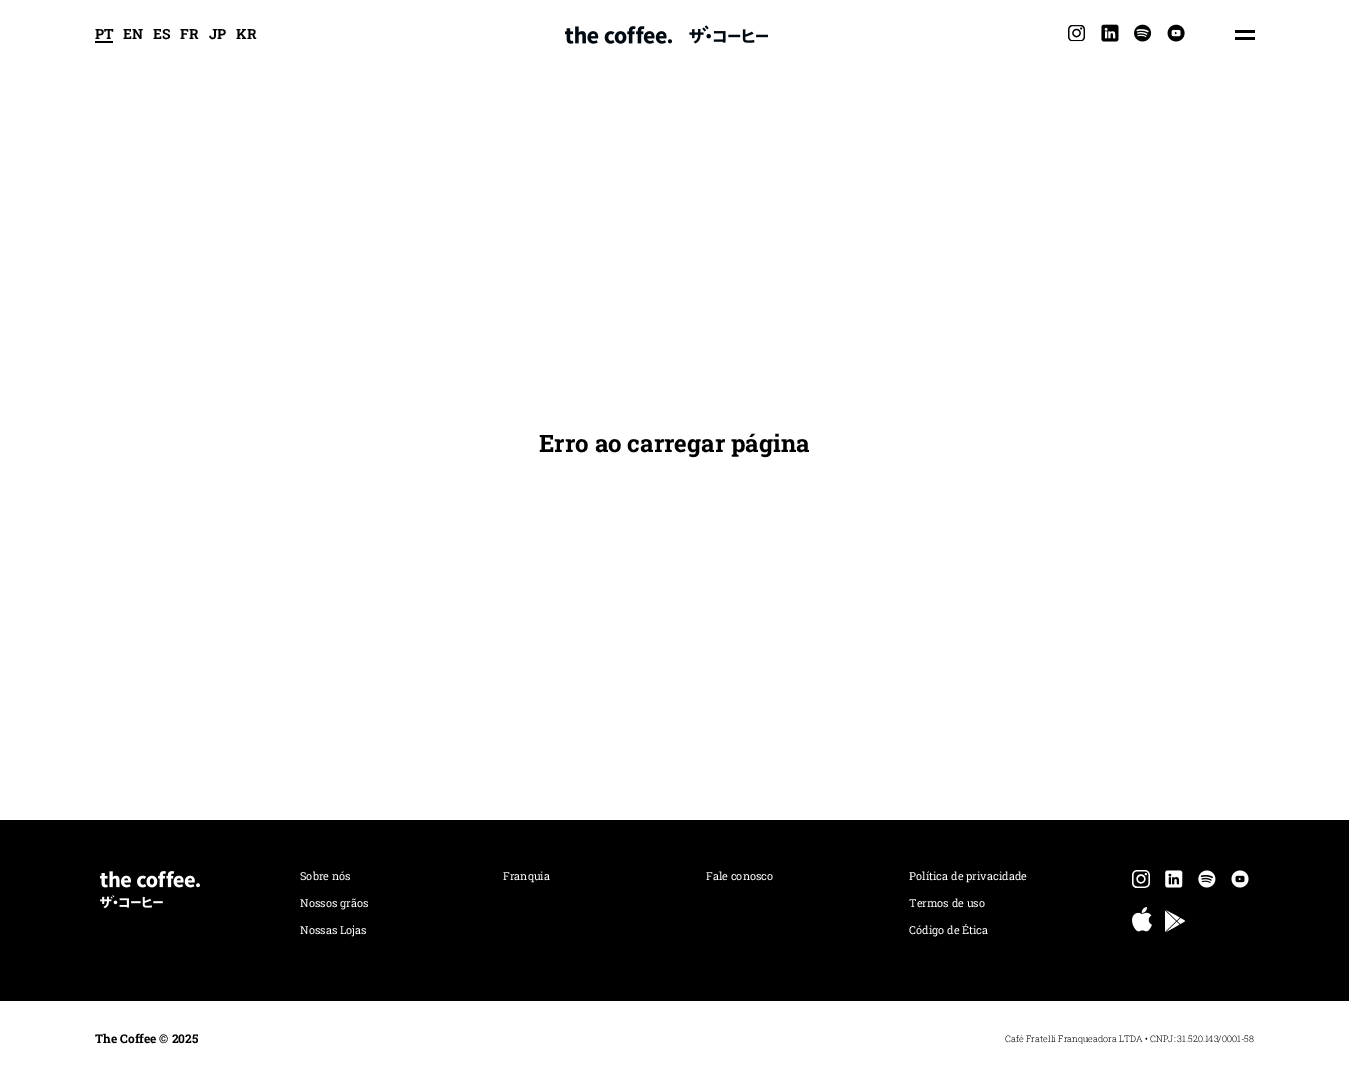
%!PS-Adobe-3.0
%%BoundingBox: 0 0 1349 1075
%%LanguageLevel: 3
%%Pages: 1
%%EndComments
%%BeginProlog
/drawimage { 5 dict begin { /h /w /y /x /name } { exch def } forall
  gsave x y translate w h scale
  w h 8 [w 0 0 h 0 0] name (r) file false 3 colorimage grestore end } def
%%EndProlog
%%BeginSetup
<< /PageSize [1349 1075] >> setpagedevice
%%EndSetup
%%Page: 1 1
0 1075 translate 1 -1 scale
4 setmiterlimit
1 setgray
0 0 1349 1075 rectfill
0 setgray
95 41 18 2 rectfill
(images/1.raw) 565 25 203 19 drawimage
(images/2.raw) 1068 25 17 17 drawimage
(images/3.raw) 1101 24 18 18 drawimage
(images/4.raw) 1134 24 18 18 drawimage
(images/5.raw) 1167 24 18 18 drawimage
1235 30 20 3 rectfill
1235 37 20 3 rectfill
0 820 1349 181 rectfill
(images/6.raw) 100 871 100 38 drawimage
(images/7.raw) 1132 870 18 18 drawimage
(images/8.raw) 1165 870 18 18 drawimage
(images/9.raw) 1198 870 18 18 drawimage
(images/10.raw) 1231 870 18 18 drawimage
(images/11.raw) 1132 907 20 25 drawimage
(images/12.raw) 1165 910 20 22 drawimage
/RobotoSlab-Bold [14 0 0 -14 0 0] selectfont
95 39 moveto (PT) show
123 39 moveto (EN) show
153 39 moveto (ES) show
180 39 moveto (FR) show
209 39 moveto (JP) show
236 39 moveto (KR) show
/RobotoSlab-Bold [24 0 0 -24 0 0] selectfont
539 452 moveto (Erro ao carregar página) show
/RobotoSlab-Regular [11 0 0 -11 0 0] selectfont
1 setgray
300 880 moveto (Sobre nós) show
300 907 moveto (Nossos grãos) show
300 934 moveto (Nossas Lojas) show
503 880 moveto (Franquia) show
706 880 moveto (Fale conosco) show
909 880 moveto (Política de privacidade) show
909 907 moveto (Termos de uso) show
909 934 moveto (Código de Ética) show
/RobotoSlab-Bold [12 0 0 -12 0 0] selectfont
0 setgray
95 1043 moveto (The Coffee © 2025) show
/RobotoSlab-Light [9 0 0 -9 0 0] selectfont
1005 1042 moveto (Café Fratelli Franqueadora LTDA • CNPJ: 31.520.143/0001-58) show
showpage
%%EOF
